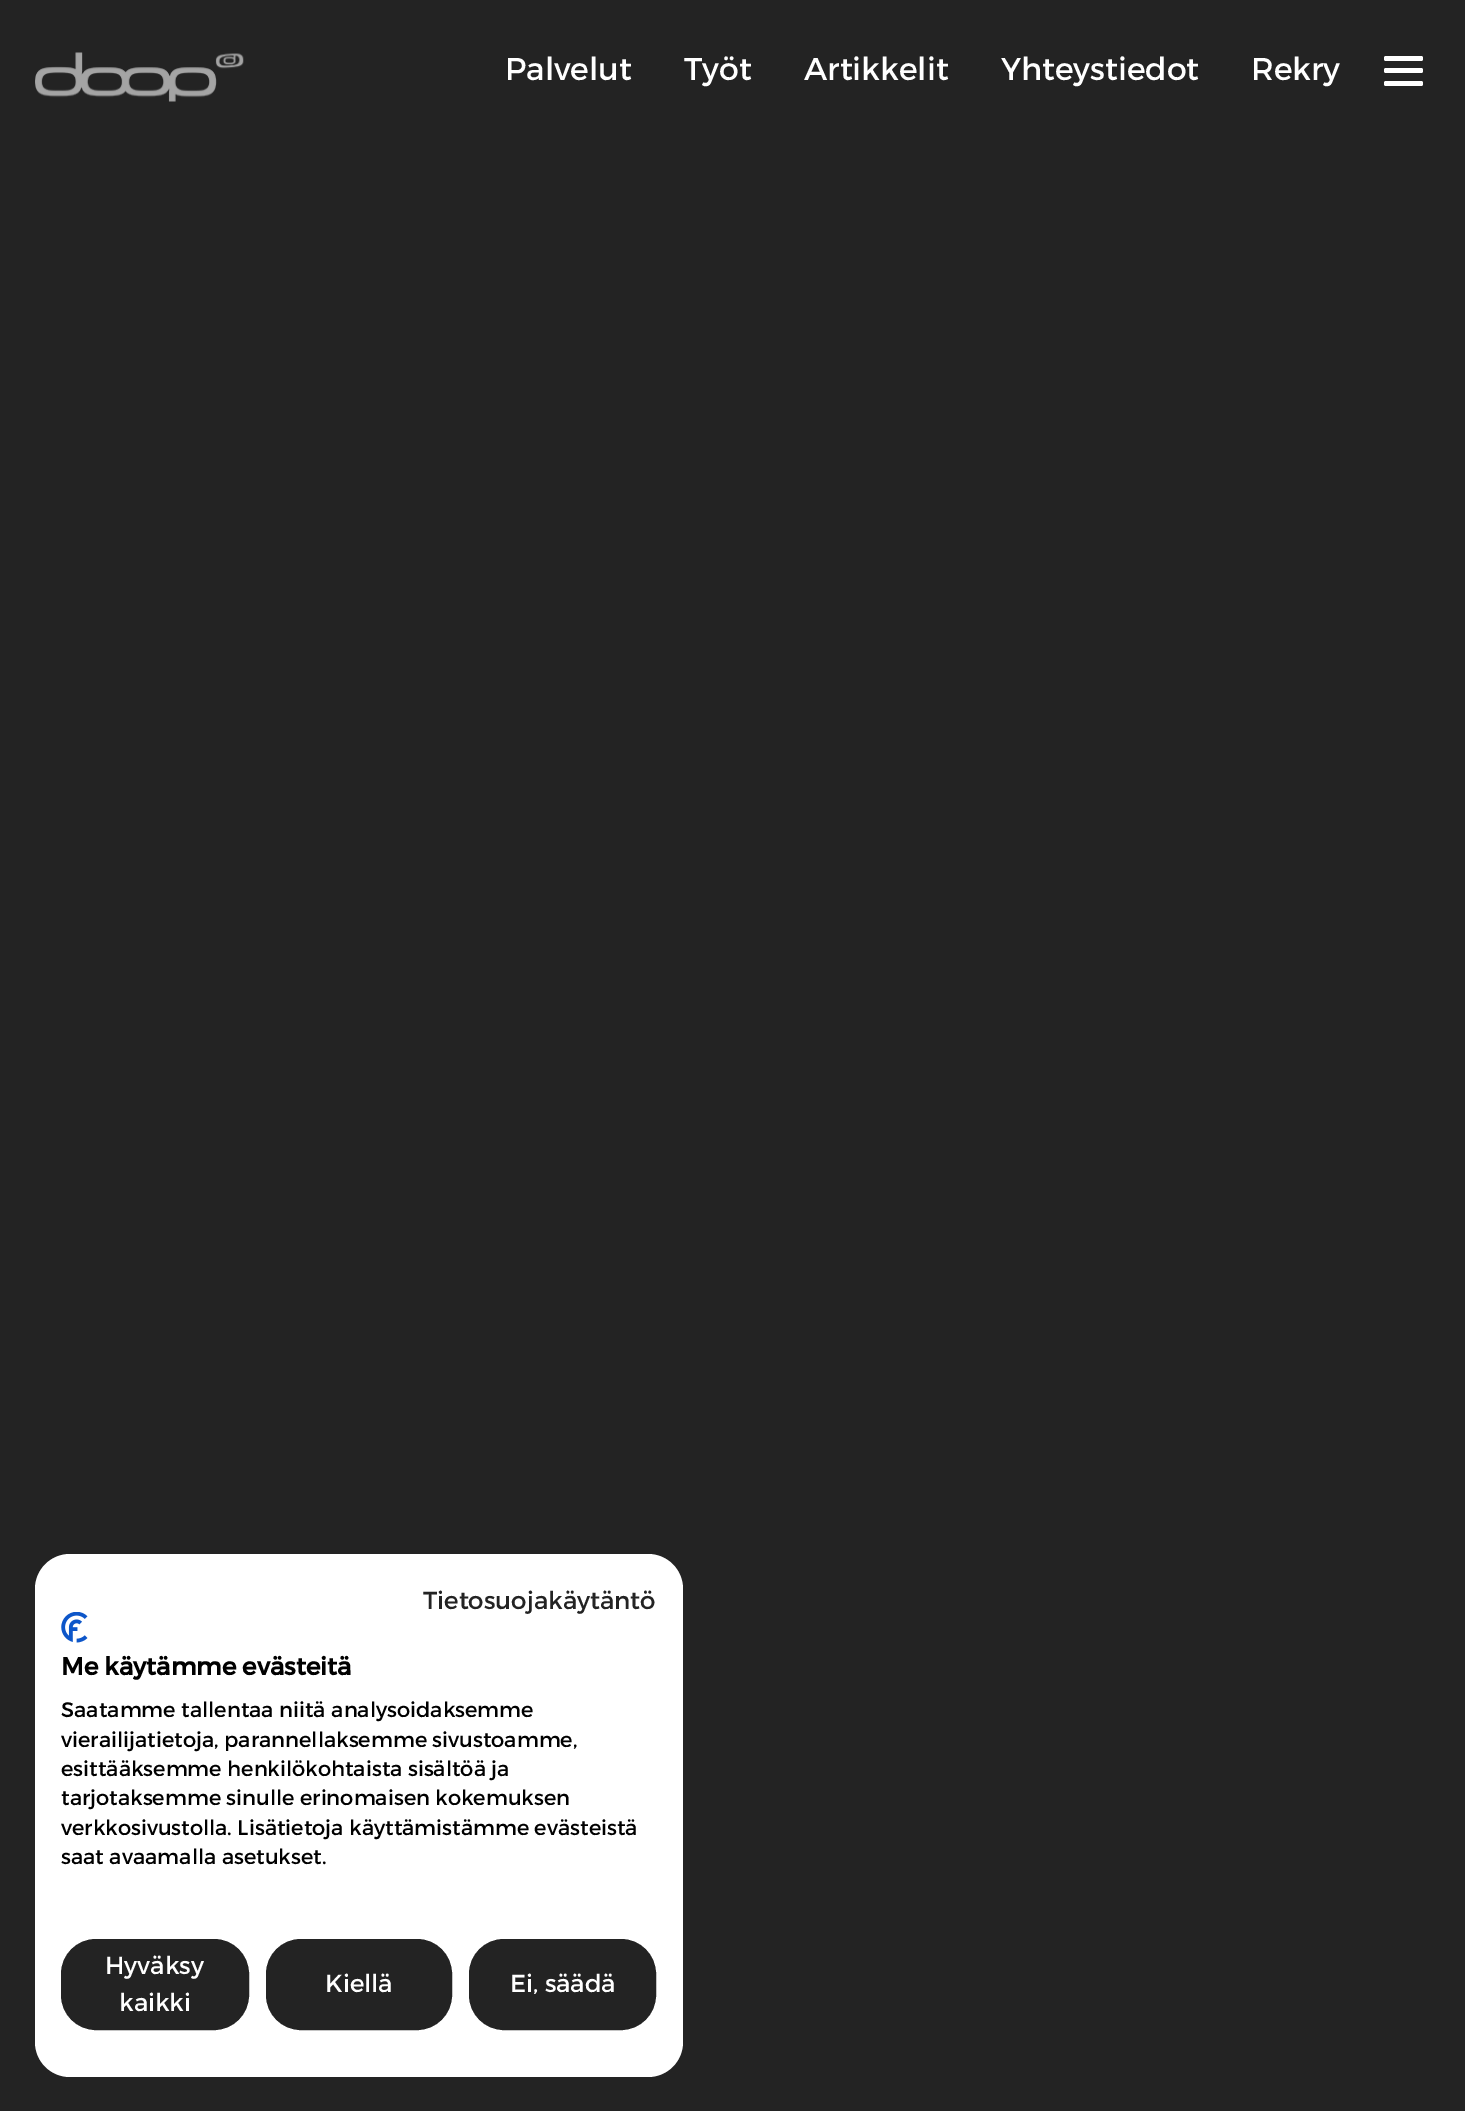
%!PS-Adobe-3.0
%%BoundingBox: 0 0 1465 2111
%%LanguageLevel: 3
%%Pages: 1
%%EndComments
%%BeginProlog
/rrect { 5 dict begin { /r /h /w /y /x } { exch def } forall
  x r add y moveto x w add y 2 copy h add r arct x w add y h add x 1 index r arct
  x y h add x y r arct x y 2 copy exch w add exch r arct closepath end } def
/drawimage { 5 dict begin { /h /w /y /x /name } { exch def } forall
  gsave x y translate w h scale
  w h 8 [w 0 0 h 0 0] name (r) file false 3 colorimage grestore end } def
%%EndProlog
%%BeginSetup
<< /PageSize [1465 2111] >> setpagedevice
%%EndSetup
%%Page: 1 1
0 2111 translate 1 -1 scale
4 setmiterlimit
0.137 setgray
0 0 1465 2111 rectfill
(images/1.raw) 35 52 209 50 drawimage
1 setgray
1384 56 39 5 2 rrect fill
1384 68 39 5 2 rrect fill
1384 81 39 5 2 rrect fill
35 1554 648 523 35 rrect fill
(images/2.raw) 61 1612 27 31 drawimage
0.137 setgray
62 1940 186 89 34 rrect gsave fill grestore
2 setlinewidth
stroke
267 1940 184 89 34 rrect gsave fill grestore
stroke
470 1940 185 89 34 rrect gsave fill grestore
stroke
/Montserrat-Regular [31.5 0 0 -31.5 0 0] selectfont
1 setgray
505 80 moveto (Palvelut) show
684 80 moveto (Työt) show
804 80 moveto (Artikkelit) show
1001 80 moveto (Yhteystiedot) show
1251 80 moveto (Rekry) show
/Montserrat-Regular [24.5 0 0 -24.5 0 0] selectfont
0.137 setgray
423 1609 moveto (Tietosuojakäytäntö) show
/Montserrat-Bold [24.5 0 0 -24.5 0 0] selectfont
0 setgray
61 1675 moveto (Me käytämme evästeitä) show
/Montserrat-Regular [21 0 0 -21 0 0] selectfont
61 1717 moveto (Saatamme tallentaa niitä analysoidaksemme) show
61 1747 moveto (vierailijatietoja, parannellaksemme sivustoamme,) show
61 1776 moveto (esittääksemme henkilökohtaista sisältöä ja) show
61 1805 moveto (tarjotaksemme sinulle erinomaisen kokemuksen) show
61 1835 moveto (verkkosivustolla. Lisätietoja käyttämistämme evästeistä) show
61 1864 moveto (saat avaamalla asetukset.) show
/Montserrat-Regular [24.5 0 0 -24.5 0 0] selectfont
1 setgray
105 1974 moveto (Hyväksy) show
119 2011 moveto (kaikki) show
325 1992 moveto (Kiellä) show
510 1992 moveto (Ei, säädä) show
showpage
%%EOF
